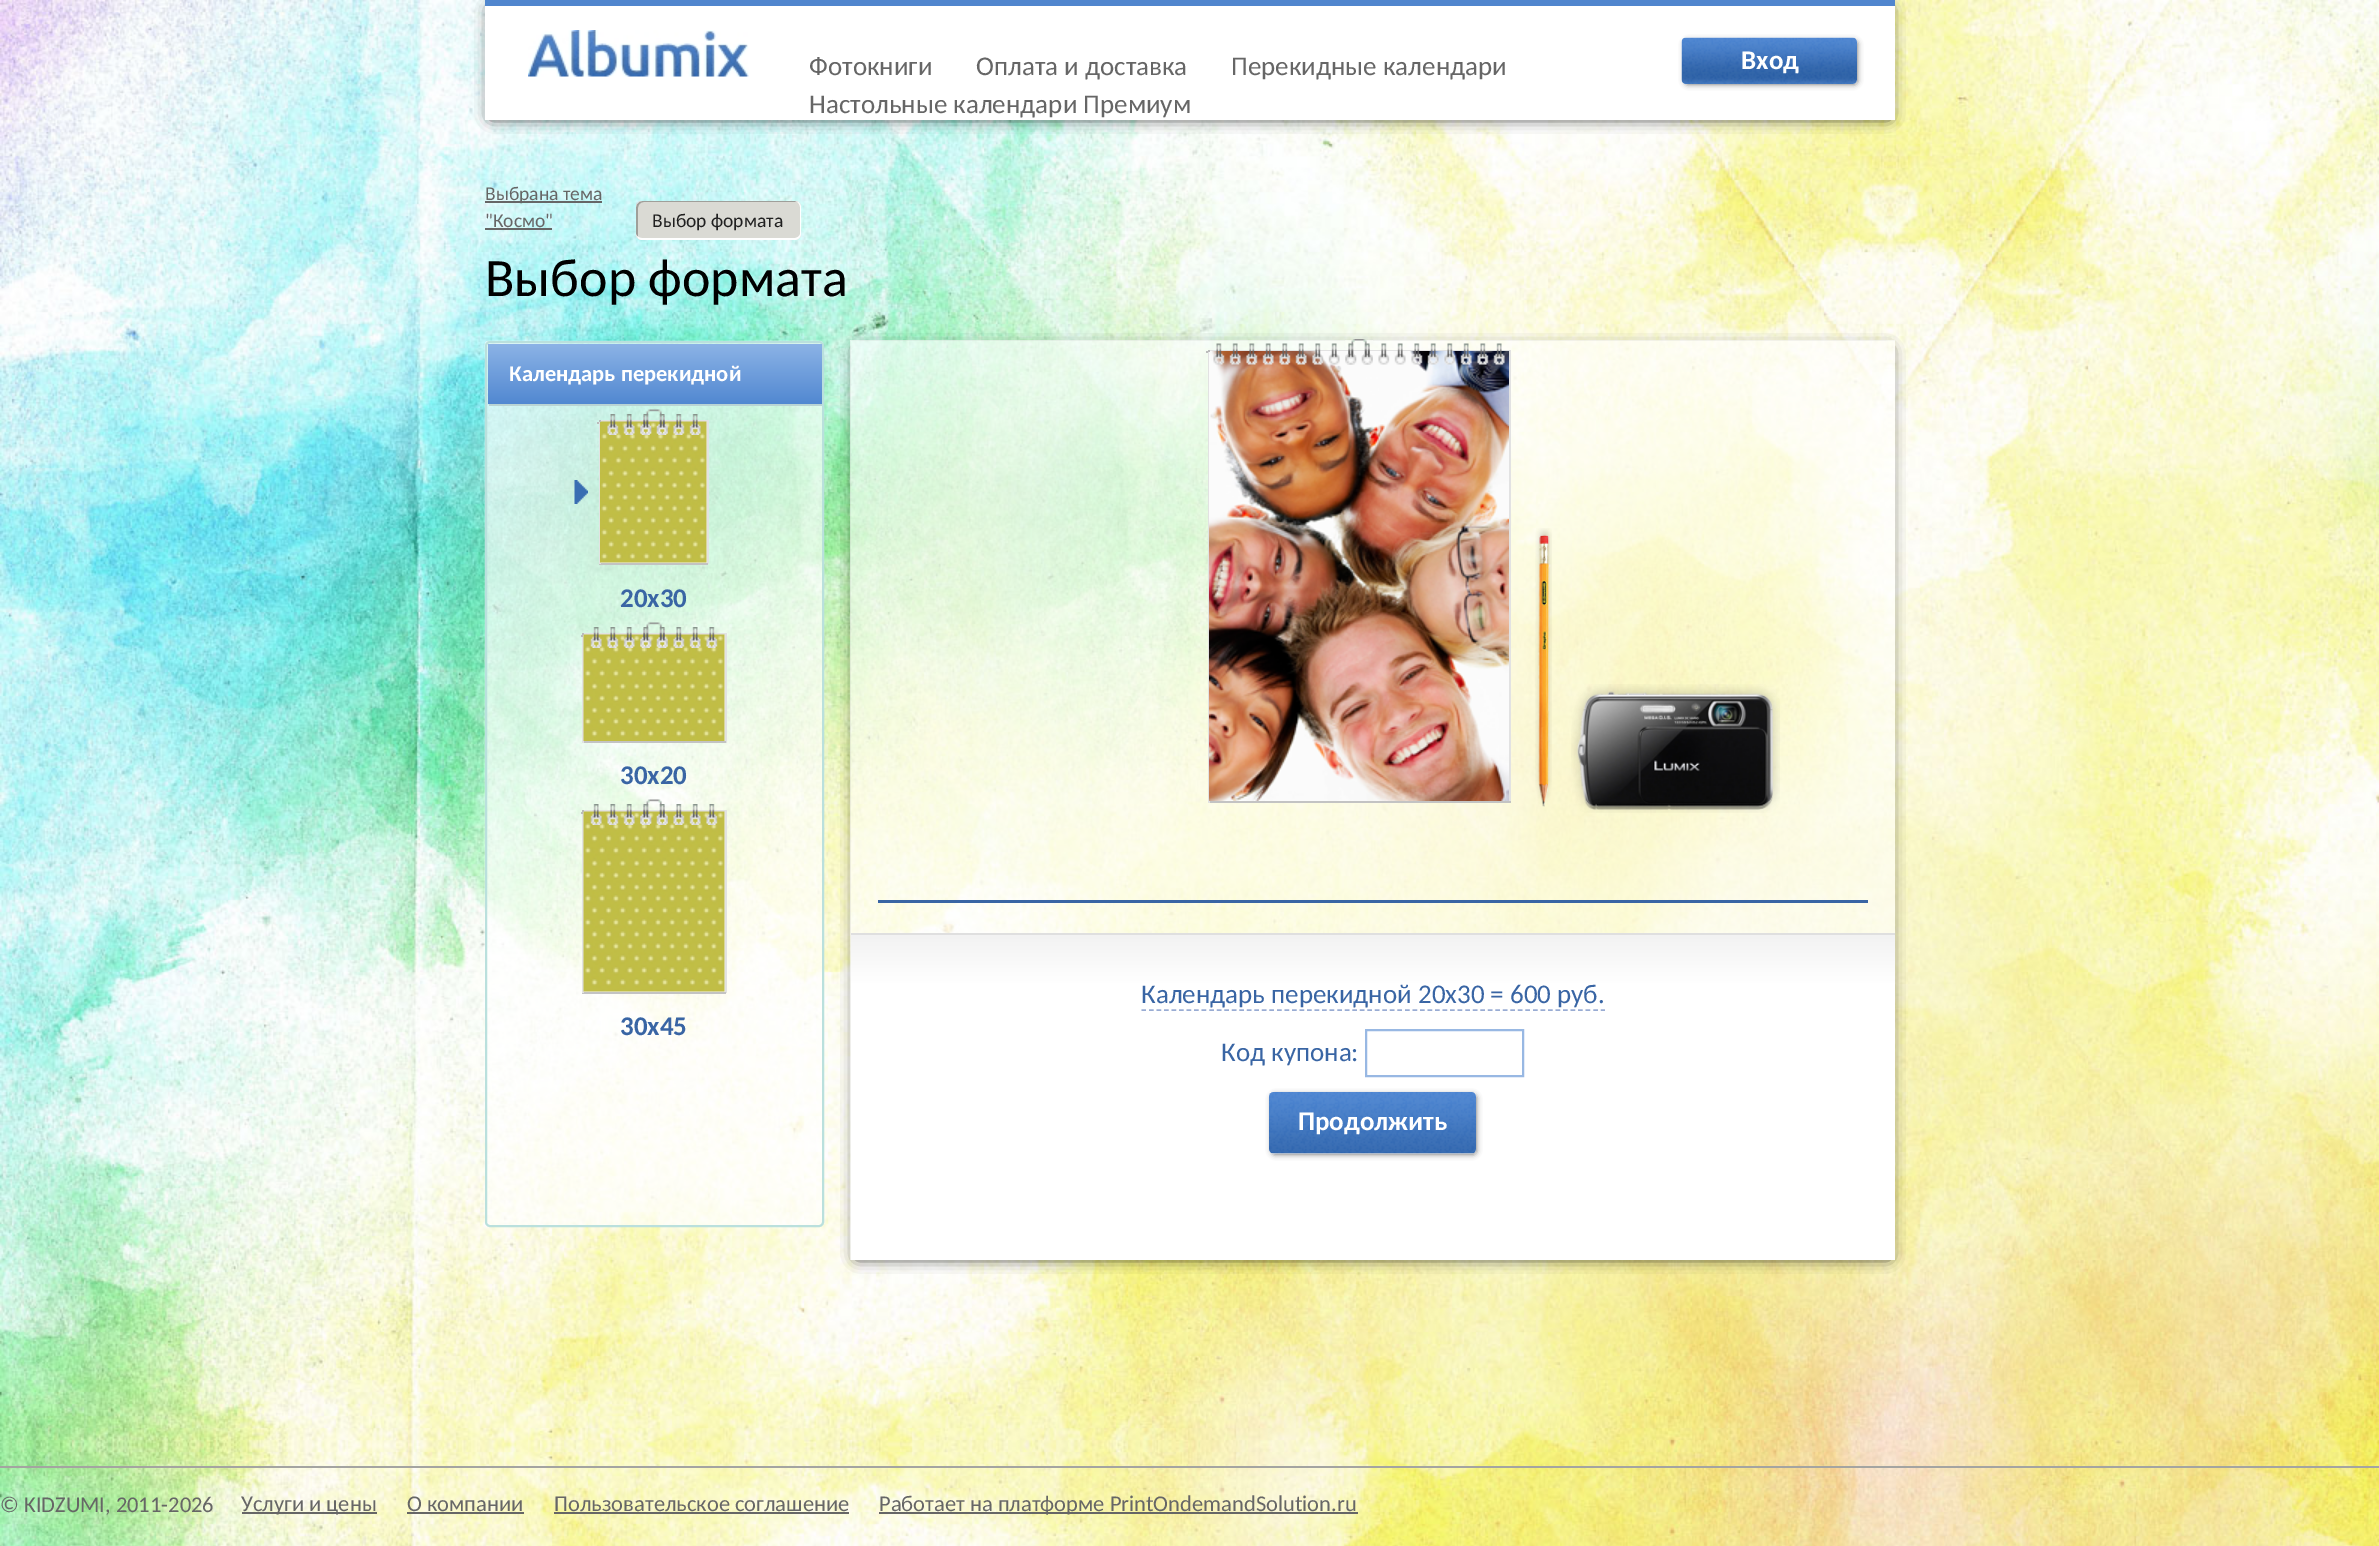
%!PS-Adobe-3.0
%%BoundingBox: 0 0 2379 1546
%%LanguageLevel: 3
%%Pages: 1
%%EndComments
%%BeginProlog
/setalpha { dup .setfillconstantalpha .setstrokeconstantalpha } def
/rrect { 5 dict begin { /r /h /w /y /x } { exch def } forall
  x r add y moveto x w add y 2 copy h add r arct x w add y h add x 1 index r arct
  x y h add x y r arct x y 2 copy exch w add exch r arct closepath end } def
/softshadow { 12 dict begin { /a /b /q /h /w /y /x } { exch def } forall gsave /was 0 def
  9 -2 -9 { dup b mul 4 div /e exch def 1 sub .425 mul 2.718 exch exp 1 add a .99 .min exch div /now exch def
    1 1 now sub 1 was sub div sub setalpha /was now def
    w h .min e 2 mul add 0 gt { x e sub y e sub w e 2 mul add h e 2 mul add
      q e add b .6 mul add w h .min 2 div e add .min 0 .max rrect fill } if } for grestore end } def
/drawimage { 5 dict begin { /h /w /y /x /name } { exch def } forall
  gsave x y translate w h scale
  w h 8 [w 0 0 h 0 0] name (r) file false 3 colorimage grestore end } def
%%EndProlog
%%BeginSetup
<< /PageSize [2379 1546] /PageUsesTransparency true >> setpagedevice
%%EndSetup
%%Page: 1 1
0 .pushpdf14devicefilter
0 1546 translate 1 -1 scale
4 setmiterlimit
1 setgray
0 0 2379 1546 rectfill
(images/1.raw) 0 0 2379 1546 drawimage
0 setgray
491 9 1398 108 0 7.5 1 softshadow
1 setgray
485 6 1410 114 rectfill
0.314 0.525 0.808 setrgbcolor
485 0 1410 6 rectfill
(images/2.raw) 528 30 221 47 drawimage
0.38 setgray
1685 41 172 43 3 3 1 softshadow
(images/3.raw) 1681 37 176 47 drawimage
0.4 setgray
485 201 117 2 rectfill
485 228 67 2 rectfill
0.855 0.855 0.831 setrgbcolor
636 201 165 39 6 rrect fill
0.624 0.624 0.604 setrgbcolor
newpath 644 202 moveto 796 202 lineto 798 202 lineto 797 202 796 201 795 201 curveto 642 201 lineto 639 201 636 204 636 207 curveto 636 234 lineto 636 235 637 237 638 238 curveto 638 236 lineto 638 208 lineto 638 205 640 202 644 202 curveto closepath fill
1 setgray
newpath 642 201 moveto 795 201 lineto 798 201 801 204 801 207 curveto 801 234 lineto 801 237 798 240 795 240 curveto 642 240 lineto 639 240 636 237 636 234 curveto 636 207 lineto 636 204 639 201 642 201 curveto closepath 642 201 moveto 795 201 lineto 797 201 800 204 800 207 curveto 800 234 lineto 800 236 797 238 795 238 curveto 642 238 lineto 639 238 636 236 636 234 curveto 636 207 lineto 636 204 639 201 642 201 curveto closepath eofill
(images/4.raw) 484 340 340 887 drawimage
0.729 0.878 0.867 setrgbcolor
2 setlinewidth
486 342 337 884 4 rrect stroke
gsave
488 344 336 61 3 rrect clip newpath
gsave newpath 491 344 moveto 822 344 lineto 822 404 lineto 488 404 lineto 488 347 lineto 488 345.5 489.5 344 491 344 curveto closepath clip newpath
<< /ShadingType 2 /ColorSpace /DeviceRGB /Coords [656 344 656 404] /Extend [true true] /Function << /FunctionType 2 /Domain [0 1] /C0 [0.549 0.702 0.902] /C1 [0.318 0.533 0.82] /N 1 >> >> shfill grestore
grestore
0.725 0.831 0.831 setrgbcolor
489 404 333 2 rectfill
0.945 setgray
601 422 106 141 rectfill
0.886 setgray
599 420 109 2 rectfill
707 420 2 144 rectfill
0.765 setgray
599 563 109 2 rectfill
0.886 setgray
599 420 2 144 rectfill
(images/5.raw) 600 421 107 142 drawimage
(images/7.raw) 607 414 94 21 drawimage
(images/6.raw) 640 409 28 26 drawimage
(images/8.raw) 574 480 14 24 drawimage
0.733 setgray
599 420 2 2 rectfill
597 422 2 2 rectfill
0.945 setgray
724 635 1 106 rectfill
0.886 setgray
582 633 144 2 rectfill
725 633 2 110 rectfill
0.765 setgray
582 741 144 2 rectfill
0.886 setgray
582 633 2 110 rectfill
(images/9.raw) 583 634 142 107 drawimage
(images/11.raw) 590 627 128 21 drawimage
(images/10.raw) 640 622 28 26 drawimage
0.733 setgray
582 633 2 2 rectfill
581 635 2 2 rectfill
0.945 setgray
584 812 141 180 rectfill
0.886 setgray
582 810 144 2 rectfill
725 810 2 183 rectfill
0.765 setgray
582 992 144 2 rectfill
0.886 setgray
582 810 2 183 rectfill
(images/12.raw) 583 811 142 181 drawimage
(images/14.raw) 590 804 128 21 drawimage
(images/13.raw) 640 799 28 26 drawimage
0.733 setgray
582 810 2 2 rectfill
581 812 2 2 rectfill
gsave
newpath 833 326 moveto 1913 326 lineto 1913 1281 lineto 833 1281 lineto closepath 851 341 moveto 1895 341 lineto 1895 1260 lineto 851 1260 lineto closepath eoclip newpath
0 setgray
857 350 1032 907 0 7.5 1 softshadow
grestore
0.6 setalpha
1 setgray
850 340 1045 920 rectfill
1 setalpha
0.886 setgray
1208 350 303 1 rectfill
1509 350 2 453 rectfill
0.765 setgray
1208 801 303 2 rectfill
0.886 setgray
1208 350 2 453 rectfill
(images/15.raw) 1209 351 300 450 drawimage
(images/17.raw) 1213 343 292 22 drawimage
(images/16.raw) 1345 339 28 26 drawimage
0.733 setgray
1206 351 2 2 rectfill
1208 350 2 2 rectfill
(images/18.raw) 1535 528 17 279 drawimage
(images/19.raw) 1571 684 209 129 drawimage
0.224 0.396 0.643 setrgbcolor
878 900 990 3 rectfill
gsave newpath 851 935 moveto 1895 935 lineto 1895 1260 lineto 851 1260 lineto closepath clip newpath
<< /ShadingType 2 /ColorSpace /DeviceRGB /Coords [1373 935 1373 1260] /Extend [true true] /Function << /FunctionType 3 /Domain [0 1] /Functions [<< /FunctionType 2 /Domain [0 1] /C0 [0.949 0.949 0.949] /C1 [1 1 1] /N 1 >> << /FunctionType 2 /Domain [0 1] /C0 [1 1 1] /C1 [1 1 1] /N 1 >>] /Bounds [0.15] /Encode [0 1 0 1] >> >> shfill grestore
0.875 setgray
851 933 1044 2 rectfill
0.6 0.675 0.827 setrgbcolor
1.5 setlinewidth
[4.5 3.03] 0 setdash
newpath 1141.5 1010 moveto 1605 1010 lineto stroke
0.596 0.722 0.89 setrgbcolor
2 setlinewidth
[] 0 setdash
1366 1030 157 46 rectstroke
0.38 setgray
1272 1095 204 59 3 3 1 softshadow
(images/20.raw) 1269 1092 207 62 drawimage
0.643 0.643 0.631 setrgbcolor
0 1466 2379 2 rectfill
0.4 setgray
242 1512 135 2 rectfill
407 1512 117 2 rectfill
554 1512 295 2 rectfill
879 1512 479 2 rectfill
/Carlito-Regular [27 0 0 -27 0 0] selectfont
809 75 moveto (Фотокниги) show
976 75 moveto (Оплата и доставка) show
1231 75 moveto (Перекидные календари) show
809 113 moveto (Настольные календари Премиум) show
/Carlito-Bold [27 0 0 -27 0 0] selectfont
1 setgray
1741 69 moveto (Вход) show
/Carlito-Regular [19.5 0 0 -19.5 0 0] selectfont
0.4 setgray
485 200 moveto (Выбрана тема) show
485 227 moveto ("Космо") show
0.125 setgray
652 227 moveto (Выбор формата) show
/Carlito-Regular [54 0 0 -54 0 0] selectfont
0 setgray
485 296 moveto (Выбор формата) show
/Carlito-Bold [22.5 0 0 -22.5 0 0] selectfont
1 setgray
509 381 moveto (Календарь перекидной) show
/Carlito-Bold [27 0 0 -27 0 0] selectfont
0.224 0.396 0.643 setrgbcolor
620 607 moveto (20x30) show
620 784 moveto (30x20) show
620 1035 moveto (30x45) show
/Carlito-Regular [27 0 0 -27 0 0] selectfont
1141 1003 moveto (Календарь перекидной 20x30 = 600 руб.) show
1221 1061 moveto (Код купона:) show
/Carlito-Bold [27 0 0 -27 0 0] selectfont
1 setgray
1298 1130 moveto (Продолжить) show
/Carlito-Regular [22.5 0 0 -22.5 0 0] selectfont
0.4 setgray
0 1512 moveto (© KIDZUMI, 2011-2026) show
241 1511 moveto (Услуги и цены) show
407 1511 moveto (О компании) show
554 1511 moveto (Пользовательское соглашение) show
879 1511 moveto (Работает на платформе PrintOndemandSolution.ru) show
.poppdf14devicefilter showpage
%%EOF
